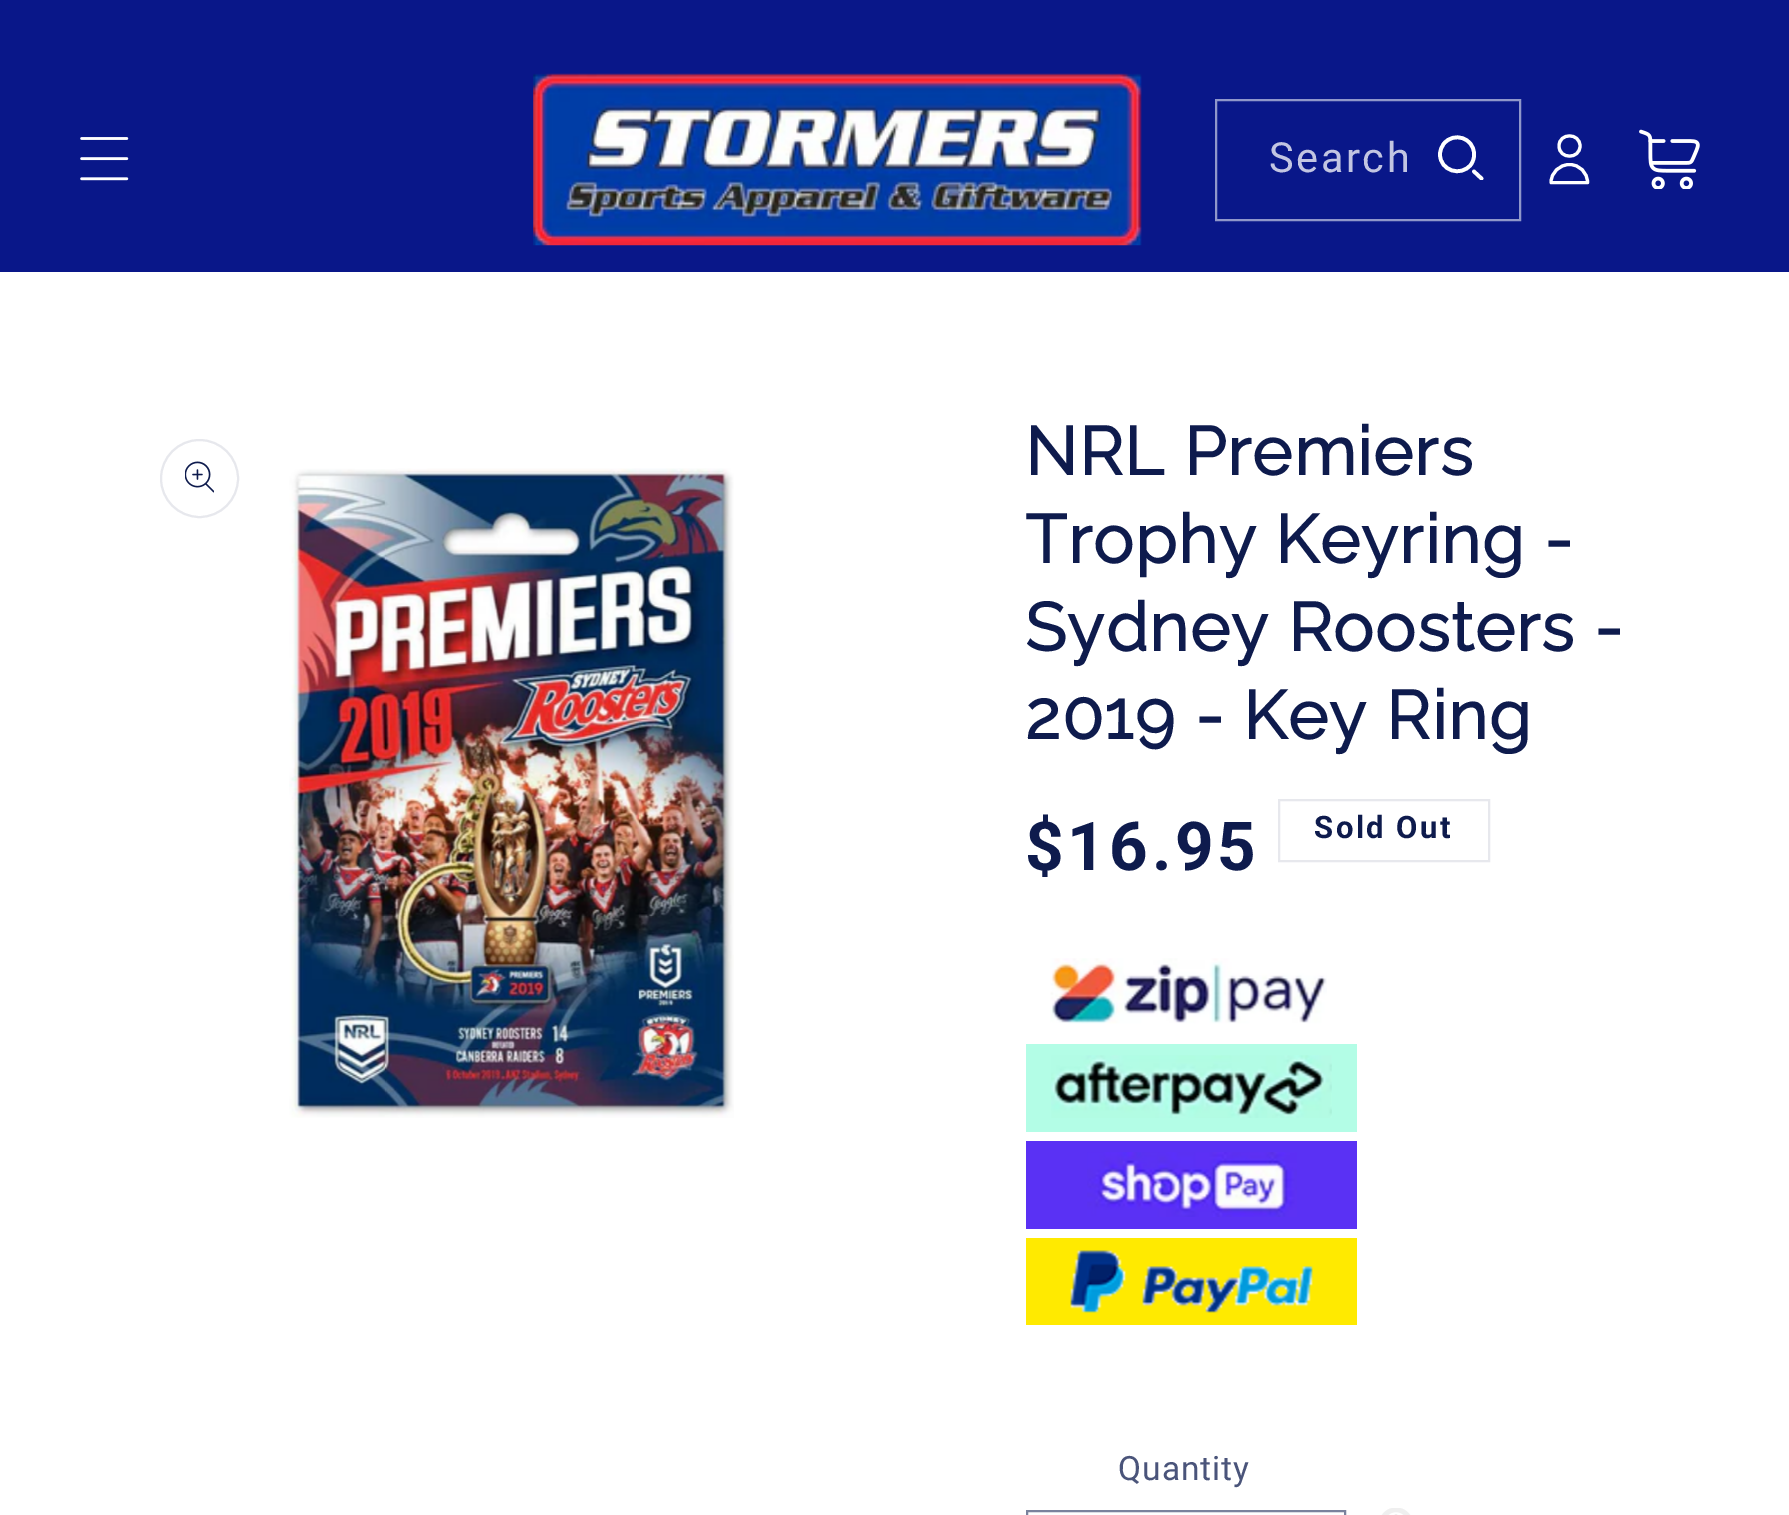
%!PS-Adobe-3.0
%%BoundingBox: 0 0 1789 1515
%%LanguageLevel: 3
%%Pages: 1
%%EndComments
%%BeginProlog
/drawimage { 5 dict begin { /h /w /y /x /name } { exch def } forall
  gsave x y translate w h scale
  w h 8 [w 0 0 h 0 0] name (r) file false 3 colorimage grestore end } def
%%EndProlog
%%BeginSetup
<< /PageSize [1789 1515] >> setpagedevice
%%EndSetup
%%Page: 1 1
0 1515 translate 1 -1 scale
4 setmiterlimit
1 setgray
0 0 1789 1515 rectfill
0.035 0.09 0.537 setrgbcolor
0 0 1789 272 rectfill
(images/1.raw) 80 137 49 44 drawimage
(images/2.raw) 533 73 609 173 drawimage
1 setgray
3.7 setlinewidth
1 setlinecap
1 setlinejoin
newpath 1440 154.5 moveto 1440 150.5 1441.5 146.5 1444 143.5 curveto 1454 131.5 1473.5 138 1474 153.5 curveto 1474.5 157.5 1473 161.5 1471 164.5 curveto 1461 177.5 1440 170.5 1440 154.5 curveto closepath stroke
gsave
1438 135 47 45 rectclip
newpath 1474 171.5 moveto 1481.5 178.5 lineto stroke
grestore
0.565 0.592 0.792 setrgbcolor
2 setlinewidth
0 setlinecap
0 setlinejoin
1216 100 304 120 rectstroke
1 setgray
3.1 setlinewidth
1 setlinecap
1 setlinejoin
newpath 1580 146 moveto 1580 159.5 1559 159.5 1559 146 curveto 1559 132.5 1580 132.5 1580 146 curveto closepath 1569.5 164.5 moveto 1559.5 164.5 1551 172.5 1551 182.5 curveto 1587.5 182.5 lineto 1587.5 172.5 1579.5 164.5 1569.5 164.5 curveto closepath stroke
(images/3.raw) 1639 129 61 60 drawimage
0.906 0.91 0.929 setrgbcolor
2 setlinewidth
0 setlinecap
0 setlinejoin
newpath 199.5 478.5 38.5 0 360 arc closepath stroke
(images/4.raw) 185 461 29 32 drawimage
(images/5.raw) 289 468 445 650 drawimage
1279 800 210 61 rectstroke
(images/6.raw) 1050 958 277 66 drawimage
0.702 0.992 0.902 setrgbcolor
1026 1044 331 88 rectfill
(images/7.raw) 1051 1055 281 63 drawimage
0.353 0.192 0.957 setrgbcolor
1026 1141 331 88 rectfill
(images/8.raw) 1087 1152 210 65 drawimage
1 0.918 0 setrgbcolor
1026 1238 331 87 rectfill
(images/9.raw) 1070 1250 243 63 drawimage
0.478 0.51 0.616 setrgbcolor
1027 1511 318 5 rectstroke
gsave
1379 1508 34 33 rectclip
0.937 setgray
newpath 1396 1524.5 17 0 360 arc closepath fill
grestore
0.784 setgray
newpath 1396 1524.5 11 0 360 arc closepath gsave fill grestore
1 setgray
2.2 setlinewidth
stroke
/Roboto-Regular [41.5 0 0 -41.5 0 0] selectfont
0.761 0.773 0.886 setrgbcolor
1269 172 moveto 2.5 0 (Search) ashow
/Raleway-Bold [67.5 0 0 -67.5 0 0] selectfont
0.055 0.106 0.302 setrgbcolor
1025 475 moveto 1.5 0 (NRL Premiers) ashow
1025 563 moveto 1.5 0 (Trophy Keyring -) ashow
1025 651 moveto 1.5 0 (Sydney Roosters -) ashow
1025 739 moveto 1.5 0 (2019 - Key Ring) ashow
/Roboto-Bold [67.5 0 0 -67.5 0 0] selectfont
1025 870 moveto 3.5 0 ($16.95) ashow
/Roboto-Bold [31 0 0 -31 0 0] selectfont
1314 838 moveto 2.5 0 (Sold Out) ashow
/Roboto-Regular [33.5 0 0 -33.5 0 0] selectfont
0.29 0.329 0.478 setrgbcolor
1118 1480 moveto 1 0 (Quantity) ashow
showpage
%%EOF
